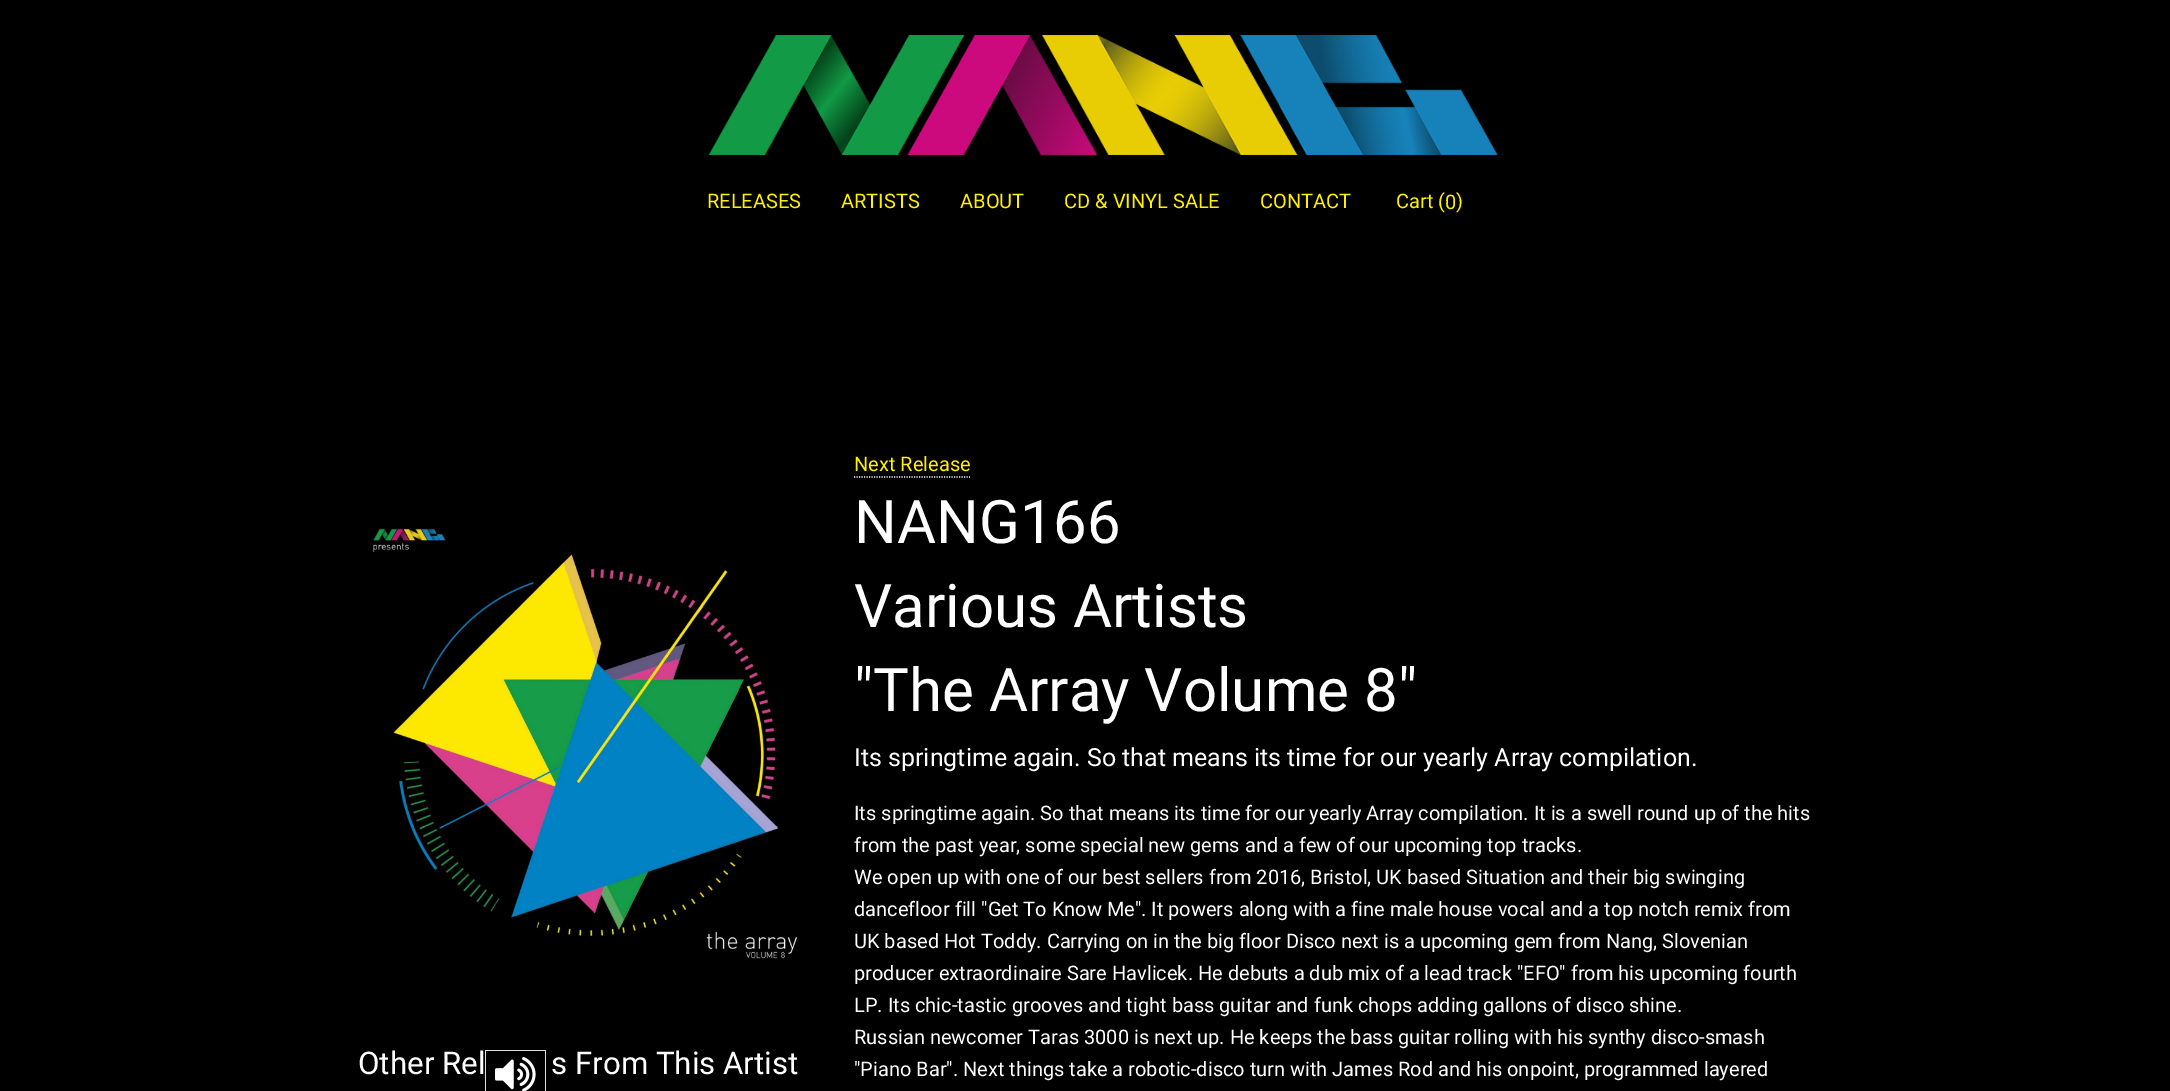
%!PS-Adobe-3.0
%%BoundingBox: 0 0 2170 1091
%%LanguageLevel: 3
%%Pages: 1
%%EndComments
%%BeginProlog
/drawimage { 5 dict begin { /h /w /y /x /name } { exch def } forall
  gsave x y translate w h scale
  w h 8 [w 0 0 h 0 0] name (r) file false 3 colorimage grestore end } def
%%EndProlog
%%BeginSetup
<< /PageSize [2170 1091] >> setpagedevice
%%EndSetup
%%Page: 1 1
0 1091 translate 1 -1 scale
4 setmiterlimit
0 setgray
0 0 2170 1091 rectfill
(images/1.raw) 708 35 790 120 drawimage
(images/2.raw) 373 527 425 432 drawimage
1 setgray
1.2 setlinewidth
[1.25 1.25] 0 setdash
newpath 854 477 moveto 970 477 lineto stroke
0.878 setgray
485 1050 61 1 rectfill
545 1050 1 41 rectfill
485 1050 1 41 rectfill
(images/3.raw) 495 1057 41 34 drawimage
/Roboto-Regular [20 0 0 -20 0 0] selectfont
1 0.941 0 setrgbcolor
707 208 moveto (RELEASES) show
841 208 moveto (ARTISTS) show
960 208 moveto (ABOUT) show
1064 208 moveto (CD & VINYL SALE) show
1260 208 moveto (CONTACT) show
1396 208 moveto (Cart \() show
1445 209 moveto (0) show
1456 208 moveto (\)) show
/Roboto-Regular [31.25 0 0 -31.25 0 0] selectfont
1 setgray
358 1074 moveto (Other Rel) show
551 1074 moveto (s From This Artist) show
/Roboto-Regular [20 0 0 -20 0 0] selectfont
1 0.941 0 setrgbcolor
854 471 moveto (Next Release) show
/Roboto-Regular [60 0 0 -60 0 0] selectfont
1 setgray
854 543 moveto (NANG166) show
854 627 moveto (Various Artists) show
854 711 moveto ("The Array Volume 8") show
/Roboto-Regular [25 0 0 -25 0 0] selectfont
854 766 moveto (Its springtime again. So that means its time for our yearly Array compilation.) show
/Roboto-Regular [20 0 0 -20 0 0] selectfont
854 820 moveto (Its springtime again. So that means its time for our yearly Array compilation. It is a swell round up of the hits) show
854 852 moveto (from the past year, some special new gems and a few of our upcoming top tracks.) show
854 884 moveto (We open up with one of our best sellers from 2016, Bristol, UK based Situation and their big swinging) show
854 916 moveto (dancefloor fill "Get To Know Me". It powers along with a fine male house vocal and a top notch remix from) show
854 948 moveto (UK based Hot Toddy. Carrying on in the big floor Disco next is a upcoming gem from Nang, Slovenian) show
854 980 moveto (producer extraordinaire Sare Havlicek. He debuts a dub mix of a lead track "EFO" from his upcoming fourth) show
854 1012 moveto (LP. Its chic-tastic grooves and tight bass guitar and funk chops adding gallons of disco shine.) show
854 1044 moveto (Russian newcomer Taras 3000 is next up. He keeps the bass guitar rolling with his synthy disco-smash) show
854 1076 moveto ("Piano Bar". Next things take a robotic-disco turn with James Rod and his onpoint, programmed layered) show
showpage
%%EOF
